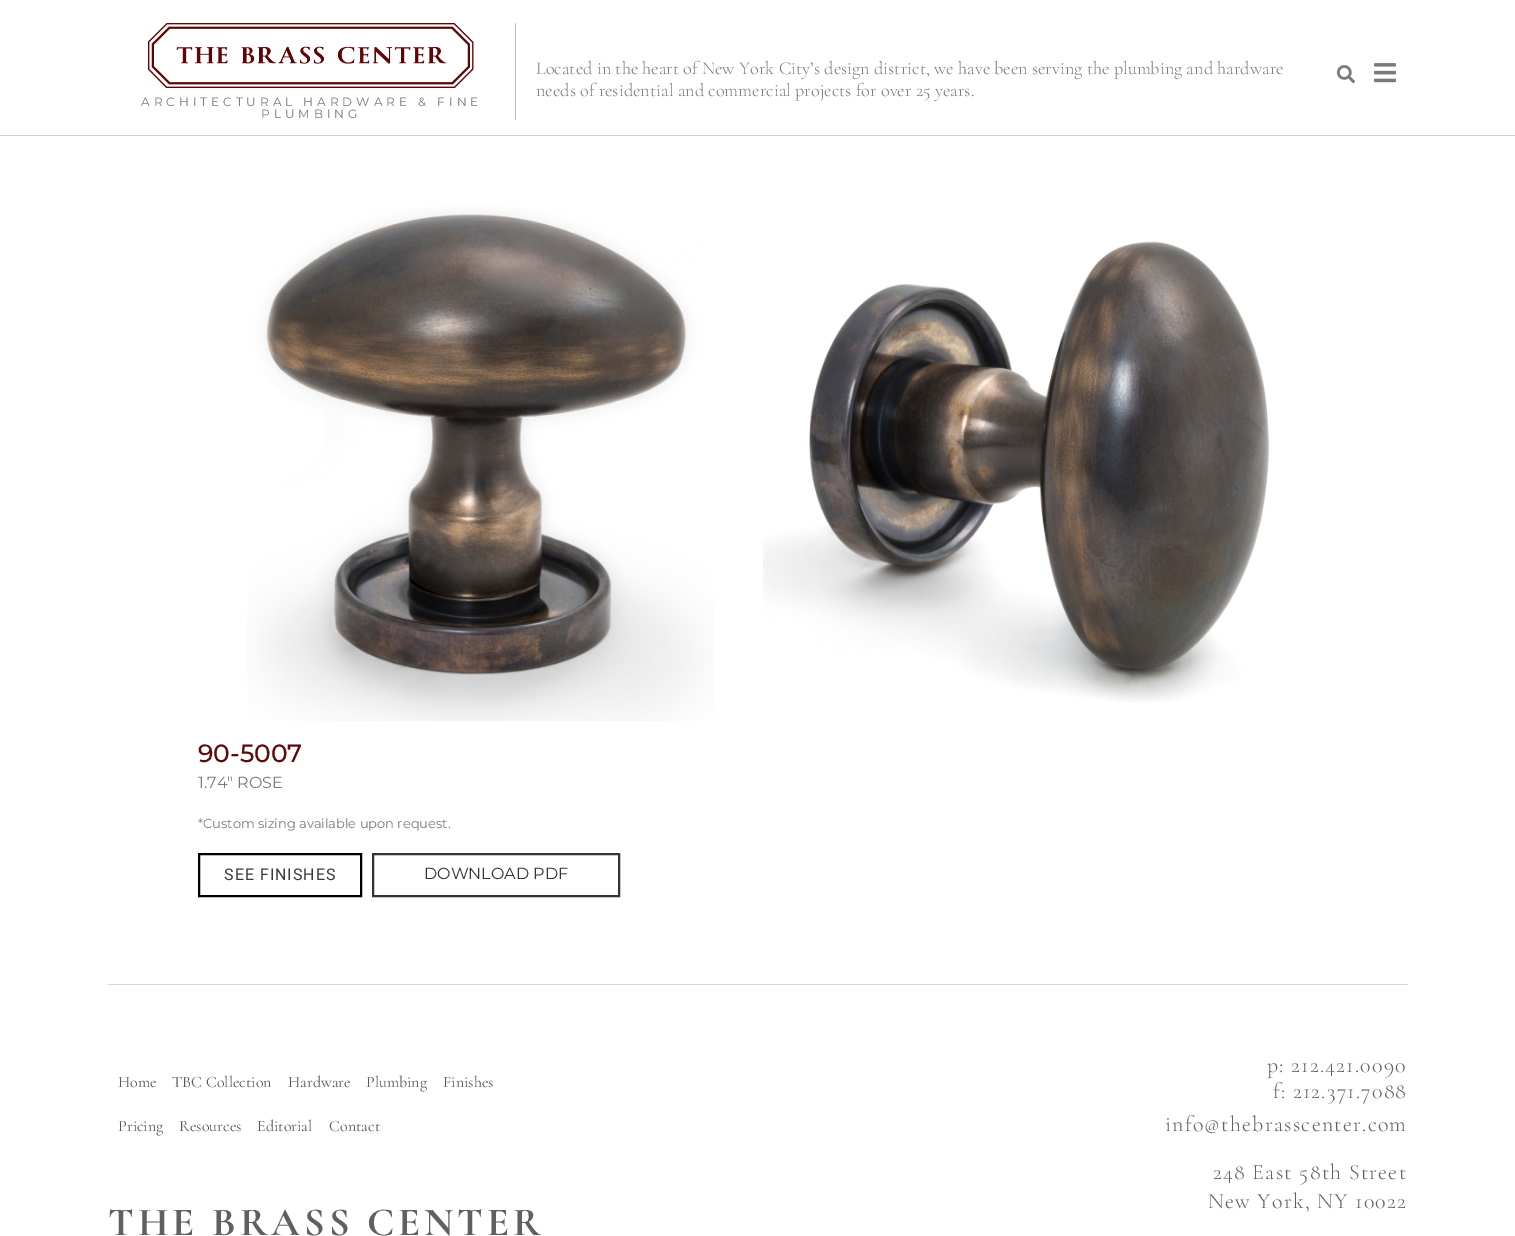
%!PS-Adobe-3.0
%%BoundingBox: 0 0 1515 1236
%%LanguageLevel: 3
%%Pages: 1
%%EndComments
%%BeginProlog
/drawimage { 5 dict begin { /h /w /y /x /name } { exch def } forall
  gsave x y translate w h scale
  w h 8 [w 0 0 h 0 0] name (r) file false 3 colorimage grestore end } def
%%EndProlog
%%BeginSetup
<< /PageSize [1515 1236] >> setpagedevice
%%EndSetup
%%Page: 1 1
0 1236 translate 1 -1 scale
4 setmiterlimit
1 setgray
0 0 1515 1236 rectfill
0.82 setgray
0 135 1515 1 rectfill
0.753 setgray
515 23 1 97 rectfill
(images/1.raw) 1336 65 19 19 drawimage
(images/2.raw) 1374 63 22 20 drawimage
(images/3.raw) 148 23 326 65 drawimage
(images/4.raw) 247 207 467 514 drawimage
(images/5.raw) 763 241 507 462 drawimage
0 setgray
2 setlinewidth
199 854 162 42 rectstroke
0.2 setgray
373 854 246 42 rectstroke
0.839 setgray
108 984 1300 1 rectfill
/CormorantGaramond-Light [18.25 0 0 -18.25 0 0] selectfont
0.478 setgray
536 74 moveto (Located in the heart of New York City’s design district, we have been serving the plumbing and hardware) show
536 96 moveto (needs of residential and commercial projects for over 25 years.) show
/Montserrat-Regular [12 0 0 -12 0 0] selectfont
141 106 moveto 4 0 (ARCHITECTURAL HARDWARE & FINE) ashow
261 118 moveto 4 0 (PLUMBING) ashow
/Montserrat-Medium [25 0 0 -25 0 0] selectfont
0.369 0.039 0.043 setrgbcolor
198 762 moveto (90-5007) show
/Montserrat-Regular [16 0 0 -16 0 0] selectfont
0.478 setgray
198 788 moveto (1.74″ ROSE) show
/Montserrat-Regular [13 0 0 -13 0 0] selectfont
198 828 moveto (*Custom sizing available upon request.) show
/Roboto-Regular [16 0 0 -16 0 0] selectfont
0.227 setgray
224 880 moveto 1 0 (SEE FINISHES) ashow
/Montserrat-Regular [16 0 0 -16 0 0] selectfont
0.2 setgray
424 879 moveto (DOWNLOAD PDF) show
/CormorantGaramond-Regular [16 0 0 -16 0 0] selectfont
0.329 0.349 0.373 setrgbcolor
118 1087 moveto (Home) show
172 1087 moveto (TBC Collection) show
288 1087 moveto (Hardware) show
366 1087 moveto (Plumbing) show
443 1087 moveto (Finishes) show
118 1131 moveto (Pricing) show
179 1131 moveto (Resources) show
257 1131 moveto (Editorial) show
329 1131 moveto (Contact) show
/CormorantGaramond-Bold [40 0 0 -40 0 0] selectfont
0.376 setgray
108 1235 moveto 4 0 (THE BRASS CENTER) ashow
/CormorantGaramond-Light [22 0 0 -22 0 0] selectfont
1267 1072 moveto 1.2 0 (p: 212.421.0090) ashow
1273 1098 moveto 1.2 0 (f: 212.371.7088) ashow
1165 1131 moveto 1.2 0 (info@thebrasscenter.com) ashow
1213 1179 moveto 1.2 0 (248 East 58th Street) ashow
1208 1208 moveto 1.2 0 (New York, NY 10022) ashow
showpage
%%EOF
